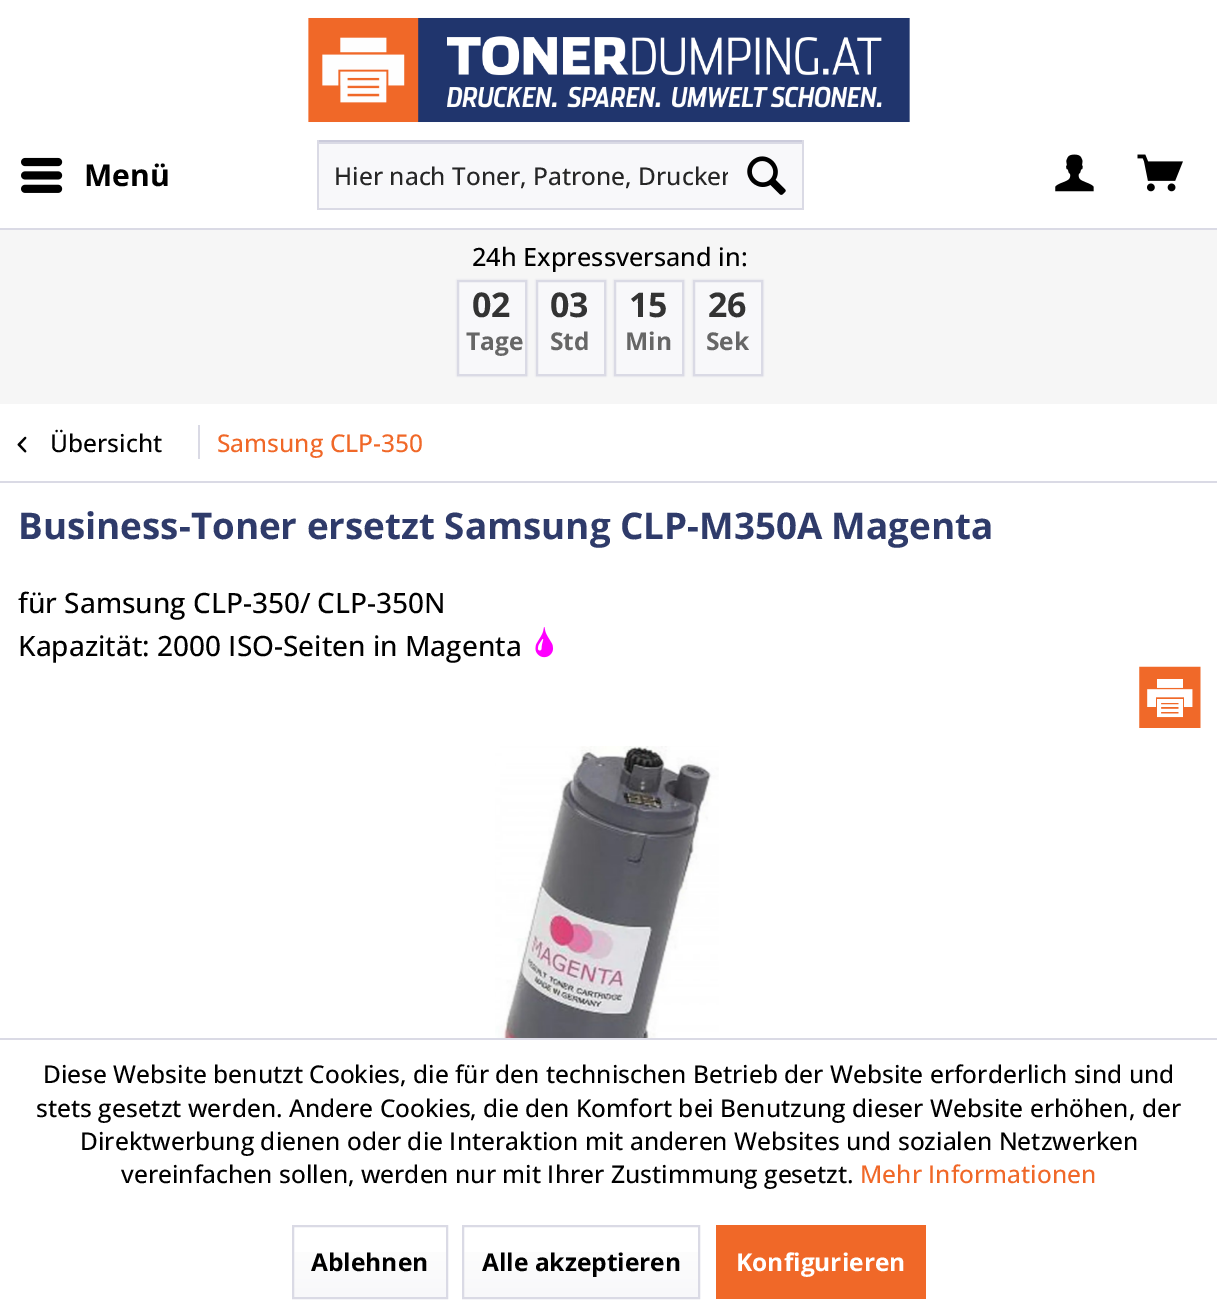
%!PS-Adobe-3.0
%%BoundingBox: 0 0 1217 1316
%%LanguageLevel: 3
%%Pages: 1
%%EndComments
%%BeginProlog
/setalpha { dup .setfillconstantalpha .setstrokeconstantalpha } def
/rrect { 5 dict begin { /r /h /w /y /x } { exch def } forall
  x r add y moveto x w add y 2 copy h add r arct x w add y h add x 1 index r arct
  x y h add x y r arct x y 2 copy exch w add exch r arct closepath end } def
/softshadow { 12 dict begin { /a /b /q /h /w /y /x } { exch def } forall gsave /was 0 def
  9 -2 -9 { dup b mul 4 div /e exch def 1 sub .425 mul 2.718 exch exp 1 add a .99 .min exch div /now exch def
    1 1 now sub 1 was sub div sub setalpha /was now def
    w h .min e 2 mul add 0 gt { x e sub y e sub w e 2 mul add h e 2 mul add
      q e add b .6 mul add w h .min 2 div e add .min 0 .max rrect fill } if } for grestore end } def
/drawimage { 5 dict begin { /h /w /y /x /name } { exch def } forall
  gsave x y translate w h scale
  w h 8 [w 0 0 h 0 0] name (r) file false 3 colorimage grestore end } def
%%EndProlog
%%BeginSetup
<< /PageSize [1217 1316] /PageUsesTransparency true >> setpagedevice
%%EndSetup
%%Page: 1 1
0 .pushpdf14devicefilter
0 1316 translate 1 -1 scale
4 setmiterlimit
0.965 setgray
0 0 1217 1316 rectfill
1 setgray
0 0 1217 228 rectfill
0.855 0.855 0.898 setrgbcolor
0 228 1217 2 rectfill
(images/1.raw) 308 17 602 106 drawimage
(images/2.raw) 21 157 42 36 drawimage
0.973 0.973 0.98 setrgbcolor
319 144 483 64 rectfill
0.855 0.855 0.898 setrgbcolor
319 142 483 2 rectfill
0.796 0.796 0.859 setrgbcolor
317 140 486 2 rectfill
0.855 0.855 0.898 setrgbcolor
802 140 2 70 rectfill
317 208 486 2 rectfill
317 140 2 70 rectfill
(images/3.raw) 747 156 39 39 drawimage
(images/4.raw) 1055 154 39 38 drawimage
(images/5.raw) 1137 154 46 38 drawimage
457 280 70 96 0 1 1 softshadow
0.973 0.973 0.98 setrgbcolor
newpath 458 281 moveto 526 281 lineto 526 375 lineto 458 375 lineto closepath gsave fill grestore
0.855 0.855 0.898 setrgbcolor
2 setlinewidth
stroke
536 280 70 96 0 1 1 softshadow
0.973 0.973 0.98 setrgbcolor
newpath 537 281 moveto 605 281 lineto 605 375 lineto 537 375 lineto closepath gsave fill grestore
0.855 0.855 0.898 setrgbcolor
stroke
614 280 70 96 0 1 1 softshadow
0.973 0.973 0.98 setrgbcolor
newpath 615 281 moveto 683 281 lineto 683 375 lineto 615 375 lineto closepath gsave fill grestore
0.855 0.855 0.898 setrgbcolor
stroke
693 280 70 96 0 1 1 softshadow
0.973 0.973 0.98 setrgbcolor
newpath 694 281 moveto 762 281 lineto 762 375 lineto 694 375 lineto closepath gsave fill grestore
0.855 0.855 0.898 setrgbcolor
stroke
1 setgray
0 404 1217 634 rectfill
0.855 0.855 0.898 setrgbcolor
0 481 1217 2 rectfill
(images/6.raw) 17 436 10 17 drawimage
198 425 2 34 rectfill
(images/7.raw) 535 627 19 31 drawimage
(images/8.raw) 1139 666 62 62 drawimage
(images/9.raw) 495 746 224 292 drawimage
1 setgray
0 1040 1217 276 rectfill
0.855 0.855 0.898 setrgbcolor
0 1038 1217 2 rectfill
gsave newpath 294 1252 moveto 446 1252 lineto 446 1297 lineto 294 1297 lineto closepath clip newpath
<< /ShadingType 2 /ColorSpace /DeviceRGB /Coords [370 1227 370 1297] /Extend [true true] /Function << /FunctionType 2 /Domain [0 1] /C0 [1 1 1] /C1 [0.973 0.973 0.98] /N 1 >> >> shfill grestore
293 1226 154 72 rectstroke
gsave newpath 464 1252 moveto 698 1252 lineto 698 1297 lineto 464 1297 lineto closepath clip newpath
<< /ShadingType 2 /ColorSpace /DeviceRGB /Coords [581 1227 581 1297] /Extend [true true] /Function << /FunctionType 2 /Domain [0 1] /C0 [1 1 1] /C1 [0.973 0.973 0.98] /N 1 >> >> shfill grestore
463 1226 236 72 rectstroke
0.941 0.408 0.157 setrgbcolor
716 1225 210 74 rectfill
/OpenSans-Bold [30 0 0 -30 0 0] selectfont
0 setgray
84 186 moveto (Menü) show
gsave
334 159 394 34 rectclip
/OpenSans-Medium [24.5 0 0 -24.5 0 0] selectfont
0.149 setgray
334 185 moveto (Hier nach Toner, Patrone, Drucker) show
grestore
/OpenSans-Medium [25.25 0 0 -25.25 0 0] selectfont
472 266 moveto (24h Expressversand in:) show
/OpenSans-Bold [34 0 0 -34 0 0] selectfont
0.2 setgray
472 317 moveto (02) show
/OpenSans-Bold [24.5 0 0 -24.5 0 0] selectfont
0.4 setgray
466 350 moveto (Tage) show
/OpenSans-Bold [34 0 0 -34 0 0] selectfont
0.2 setgray
550 317 moveto (03) show
/OpenSans-Bold [24.5 0 0 -24.5 0 0] selectfont
0.4 setgray
550 350 moveto (Std) show
/OpenSans-Bold [34 0 0 -34 0 0] selectfont
0.2 setgray
629 317 moveto (15) show
/OpenSans-Bold [24.5 0 0 -24.5 0 0] selectfont
0.4 setgray
625 350 moveto (Min) show
/OpenSans-Bold [34 0 0 -34 0 0] selectfont
0.2 setgray
708 317 moveto (26) show
/OpenSans-Bold [24.5 0 0 -24.5 0 0] selectfont
0.4 setgray
706 350 moveto (Sek) show
/OpenSans-Medium [24.5 0 0 -24.5 0 0] selectfont
0 setgray
50 452 moveto (Übersicht) show
0.941 0.408 0.157 setrgbcolor
217 452 moveto (Samsung CLP-350) show
/OpenSans-Bold [36.75 0 0 -36.75 0 0] selectfont
0.184 0.231 0.416 setrgbcolor
18 539 moveto (Business-Toner ersetzt Samsung CLP-M350A Magenta) show
/OpenSans-Medium [28 0 0 -28 0 0] selectfont
0 setgray
18 613 moveto (für Samsung CLP-350/ CLP-350N) show
18 656 moveto (Kapazität: 2000 ISO-Seiten in Magenta) show
/OpenSans-Medium [24.5 0 0 -24.5 0 0] selectfont
43 1083 moveto (Diese Website benutzt Cookies, die für den technischen Betrieb der Website erforderlich sind und) show
36 1117 moveto (stets gesetzt werden. Andere Cookies, die den Komfort bei Benutzung dieser Website erhöhen, der) show
80 1150 moveto (Direktwerbung dienen oder die Interaktion mit anderen Websites und sozialen Netzwerken) show
121 1183 moveto (vereinfachen sollen, werden nur mit Ihrer Zustimmung gesetzt.) show
0.941 0.408 0.157 setrgbcolor
860 1183 moveto (Mehr Informationen) show
/OpenSans-Bold [24.5 0 0 -24.5 0 0] selectfont
0 setgray
311 1271 moveto (Ablehnen) show
482 1271 moveto (Alle akzeptieren) show
1 setgray
736 1271 moveto (Konfigurieren) show
.poppdf14devicefilter showpage
%%EOF
